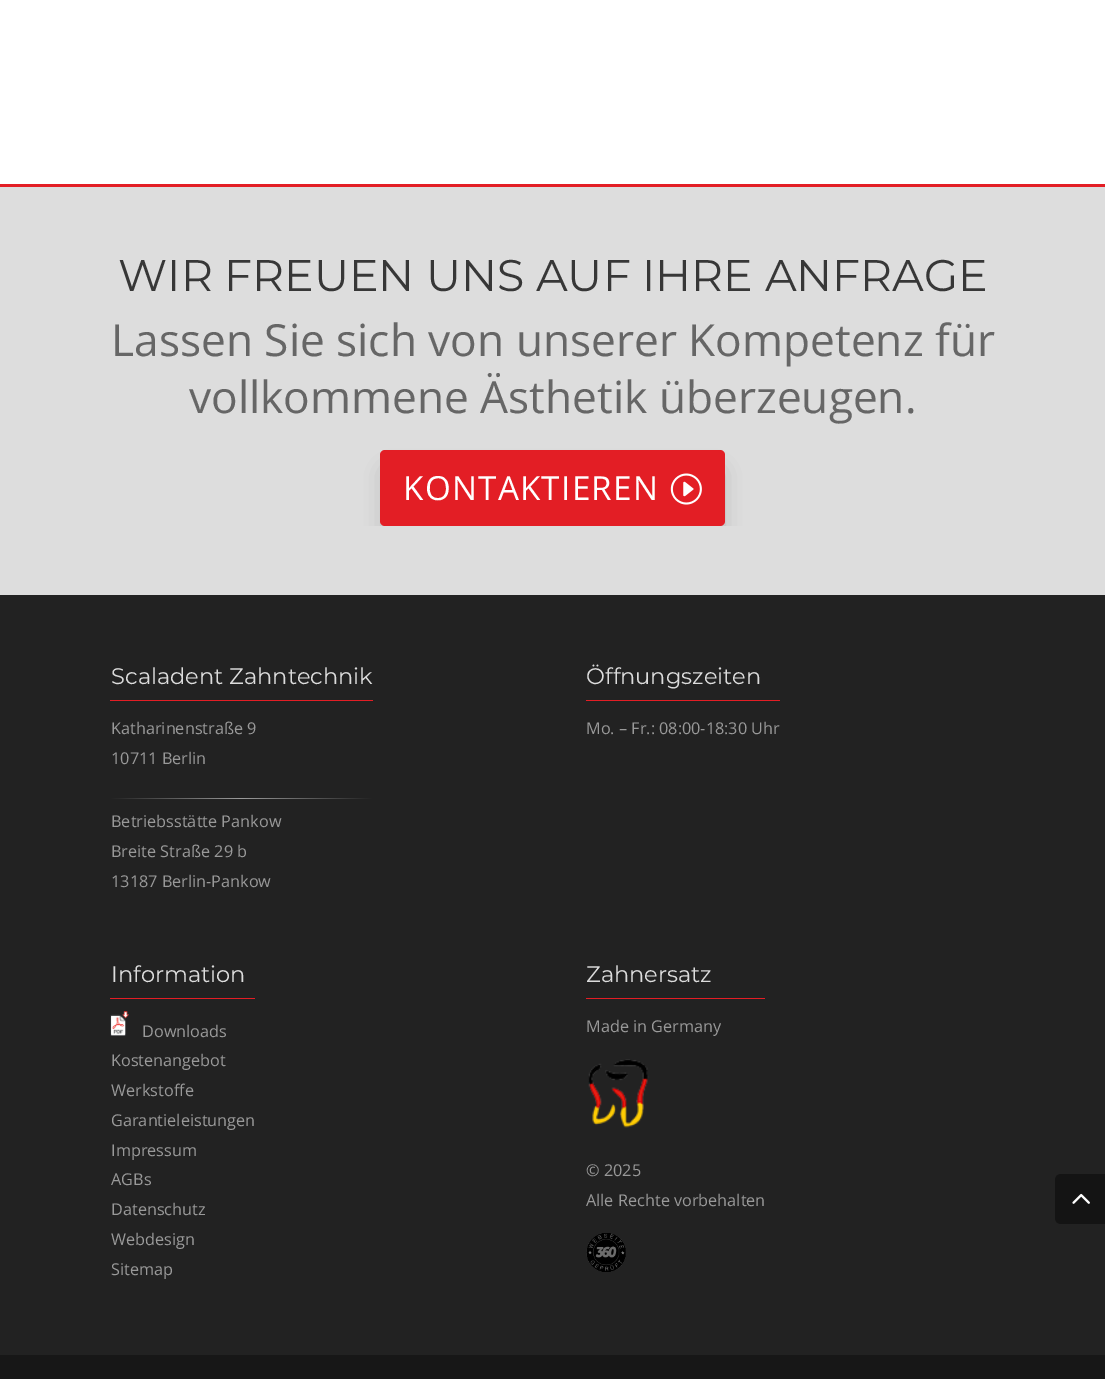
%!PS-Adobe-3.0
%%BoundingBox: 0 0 1105 1379
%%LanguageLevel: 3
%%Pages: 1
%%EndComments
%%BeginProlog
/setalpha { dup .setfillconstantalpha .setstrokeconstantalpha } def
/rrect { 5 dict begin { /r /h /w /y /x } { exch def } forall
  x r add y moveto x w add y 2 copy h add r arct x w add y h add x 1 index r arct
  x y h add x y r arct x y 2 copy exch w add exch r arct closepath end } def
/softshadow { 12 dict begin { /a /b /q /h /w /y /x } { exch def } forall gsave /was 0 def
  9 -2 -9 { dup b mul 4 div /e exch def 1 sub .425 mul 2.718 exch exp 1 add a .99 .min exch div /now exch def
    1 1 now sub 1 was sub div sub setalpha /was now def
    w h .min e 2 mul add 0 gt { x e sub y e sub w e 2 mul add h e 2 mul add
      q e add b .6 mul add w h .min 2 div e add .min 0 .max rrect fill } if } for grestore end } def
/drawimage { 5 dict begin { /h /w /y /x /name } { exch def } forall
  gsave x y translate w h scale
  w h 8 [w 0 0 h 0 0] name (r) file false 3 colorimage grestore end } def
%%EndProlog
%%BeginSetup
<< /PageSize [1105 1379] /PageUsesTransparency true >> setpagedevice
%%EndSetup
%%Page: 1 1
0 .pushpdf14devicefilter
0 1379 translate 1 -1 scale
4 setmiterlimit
1 setgray
0 0 1105 1379 rectfill
0.867 setgray
0 187 1105 408 rectfill
0.89 0.118 0.145 setrgbcolor
0 184 1105 3 rectfill
gsave
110 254 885 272 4 rrect clip newpath
0 setgray
388 473 330 61 0 11 0.3 softshadow
grestore
380 450 345 76 5 rrect fill
(images/1.raw) 670 473 32 32 drawimage
0.133 setgray
0 595 1105 760 rectfill
0.89 0.118 0.145 setrgbcolor
110 700 263 1 rectfill
gsave newpath 110 798 moveto 373 798 lineto 373 799 lineto 110 799 lineto closepath clip newpath
<< /ShadingType 2 /ColorSpace /DeviceRGB /Coords [110 798 373 798] /Extend [true true] /Function << /FunctionType 3 /Domain [0 1] /Functions [<< /FunctionType 2 /Domain [0 1] /C0 [0.133 0.133 0.133] /C1 [0.612 0.612 0.612] /N 1 >> << /FunctionType 2 /Domain [0 1] /C0 [0.612 0.612 0.612] /C1 [0.133 0.133 0.133] /N 1 >>] /Bounds [0.5] /Encode [0 1 0 1] >> >> shfill grestore
586 700 194 1 rectfill
110 998 145 1 rectfill
(images/2.raw) 110 1011 19 25 drawimage
586 998 179 1 rectfill
(images/3.raw) 588 1059 61 69 drawimage
(images/4.raw) 586 1233 40 39 drawimage
0.09 setgray
0 1355 1105 24 rectfill
0.078 setgray
newpath 1061 1174 moveto 1105 1174 lineto 1105 1224 lineto 1061 1224 lineto 1057.5 1224 1055 1221.5 1055 1218 curveto 1055 1180 lineto 1055 1176.5 1057.5 1174 1061 1174 curveto closepath fill
(images/5.raw) 1072 1193 18 11 drawimage
/Montserrat-Regular [44.25 0 0 -44.25 0 0] selectfont
0.216 setgray
118 291 moveto (WIR FREUEN UNS AUF IHRE ANFRAGE) show
/OpenSans-Regular [44.25 0 0 -44.25 0 0] selectfont
0.4 setgray
111 356 moveto (Lassen Sie sich von unserer Kompetenz für) show
189 413 moveto (vollkommene Ästhetik überzeugen.) show
/OpenSans-Regular [33.25 0 0 -33.25 0 0] selectfont
1 setgray
403 500 moveto 1.25 0 (KONTAKTIEREN) ashow
/Montserrat-Regular [22.5 0 0 -22.5 0 0] selectfont
0.863 setgray
111 684 moveto (Scaladent Zahntechnik) show
/OpenSans-Regular [16.25 0 0 -16.25 0 0] selectfont
0.6 setgray
111 734 moveto (Katharinenstraße 9) show
111 764 moveto (10711 Berlin) show
111 827 moveto (Betriebsstätte Pankow) show
111 857 moveto (Breite Straße 29 b) show
111 887 moveto (13187 Berlin-Pankow) show
/Montserrat-Regular [22.5 0 0 -22.5 0 0] selectfont
0.863 setgray
586 684 moveto (Öffnungszeiten) show
/OpenSans-Regular [16.25 0 0 -16.25 0 0] selectfont
0.6 setgray
586 734 moveto (Mo. – Fr.: 08:00-18:30 Uhr) show
/Montserrat-Regular [22.5 0 0 -22.5 0 0] selectfont
0.863 setgray
111 982 moveto (Information) show
/OpenSans-Regular [16.25 0 0 -16.25 0 0] selectfont
0.6 setgray
142 1037 moveto (Downloads) show
111 1066 moveto (Kostenangebot) show
111 1096 moveto (Werkstoffe) show
111 1126 moveto (Garantieleistungen) show
111 1156 moveto (Impressum) show
111 1185 moveto (AGBs) show
111 1215 moveto (Datenschutz) show
111 1245 moveto (Webdesign) show
111 1275 moveto (Sitemap) show
/Montserrat-Regular [22.5 0 0 -22.5 0 0] selectfont
0.863 setgray
586 982 moveto (Zahnersatz) show
/OpenSans-Regular [16.25 0 0 -16.25 0 0] selectfont
0.6 setgray
586 1032 moveto (Made in Germany) show
586 1176 moveto (© 2025) show
586 1206 moveto (Alle Rechte vorbehalten) show
.poppdf14devicefilter showpage
%%EOF
